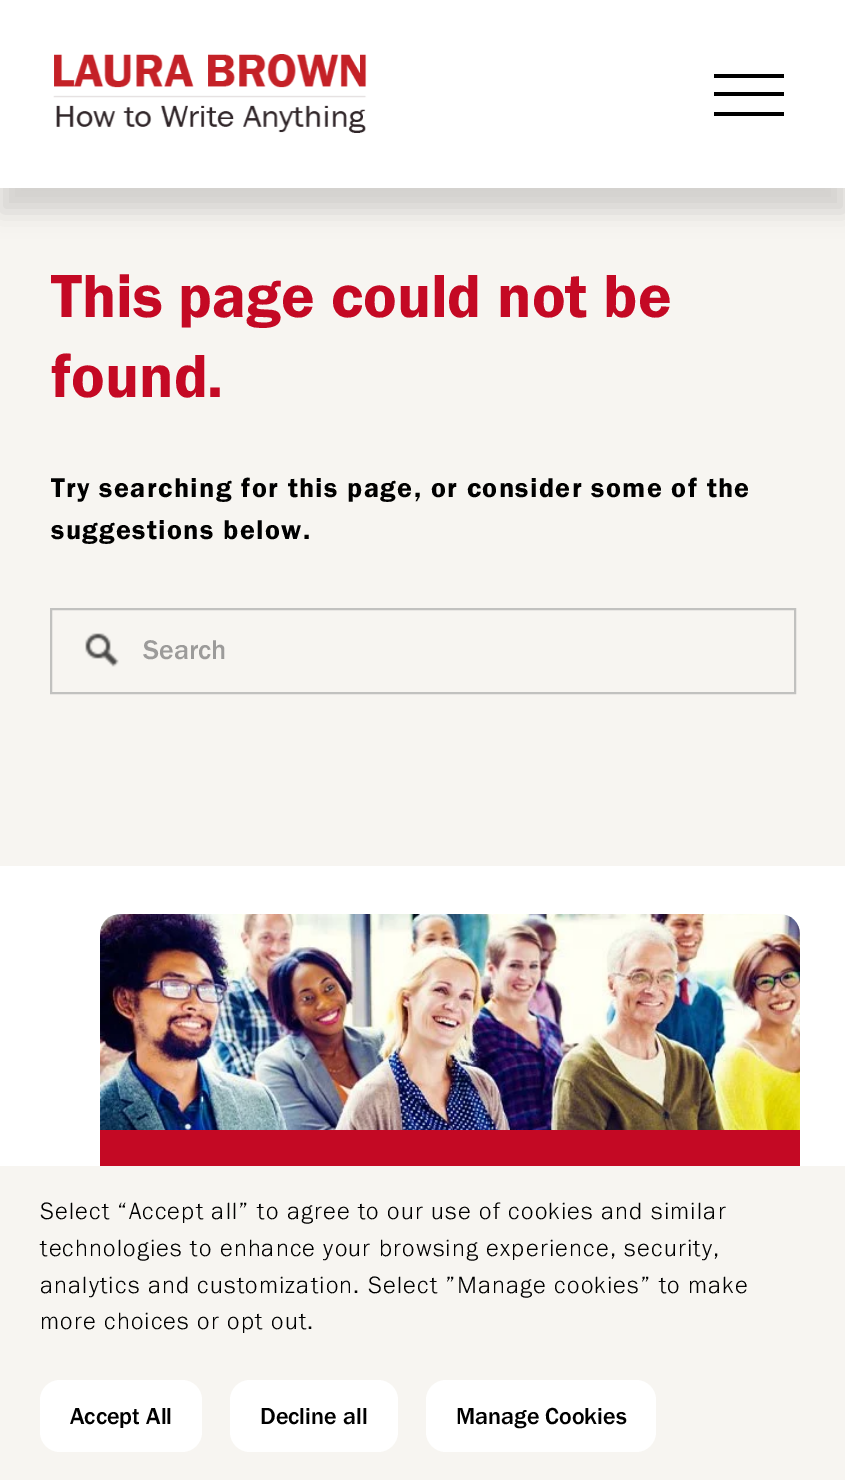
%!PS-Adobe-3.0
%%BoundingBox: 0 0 845 1480
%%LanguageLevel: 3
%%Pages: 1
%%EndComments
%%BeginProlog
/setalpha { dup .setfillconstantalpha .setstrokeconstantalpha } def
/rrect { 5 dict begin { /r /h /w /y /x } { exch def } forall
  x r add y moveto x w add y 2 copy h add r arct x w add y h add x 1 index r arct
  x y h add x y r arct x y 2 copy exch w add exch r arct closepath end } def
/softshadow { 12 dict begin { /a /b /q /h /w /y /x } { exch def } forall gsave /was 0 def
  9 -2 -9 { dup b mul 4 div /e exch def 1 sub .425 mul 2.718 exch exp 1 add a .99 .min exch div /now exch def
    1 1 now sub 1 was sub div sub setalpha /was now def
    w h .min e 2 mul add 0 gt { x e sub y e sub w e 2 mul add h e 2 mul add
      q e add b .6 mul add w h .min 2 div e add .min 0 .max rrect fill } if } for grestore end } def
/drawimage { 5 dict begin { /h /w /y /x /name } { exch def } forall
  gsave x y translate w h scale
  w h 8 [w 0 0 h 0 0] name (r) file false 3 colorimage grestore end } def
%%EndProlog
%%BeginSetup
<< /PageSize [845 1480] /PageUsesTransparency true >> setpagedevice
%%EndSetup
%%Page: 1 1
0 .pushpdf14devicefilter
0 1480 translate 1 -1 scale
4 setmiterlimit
0.969 0.961 0.945 setrgbcolor
0 0 845 1480 rectfill
0.824 0.816 0.804 setrgbcolor
0 24 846 188 0 12 1 softshadow
1 setgray
0 0 845 188 rectfill
(images/1.raw) 53 54 314 79 drawimage
0 setgray
714 74 70 4 rectfill
714 92 70 4 rectfill
714 112 70 4 rectfill
(images/2.raw) 85 633 34 34 drawimage
0.757 0.757 0.749 setrgbcolor
2 setlinewidth
51 609 744 84 rectstroke
1 setgray
0 866 845 300 rectfill
(images/3.raw) 100 914 700 216 drawimage
0.769 0.035 0.141 setrgbcolor
100 1130 700 36 rectfill
1 setgray
40 1380 162 72 20 rrect fill
230 1380 168 72 20 rrect fill
426 1380 230 72 20 rrect fill
/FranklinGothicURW-SemiBold [63 0 0 -63 0 0] selectfont
0.769 0.035 0.141 setrgbcolor
51 317 moveto (This page could not be) show
51 397 moveto (found.) show
/FranklinGothicURW-SemiBold [28 0 0 -28 0 0] selectfont
0 setgray
51 497 moveto 1.4 0 (Try searching for this page, or consider some of the) ashow
51 539 moveto 1.4 0 (suggestions below.) ashow
/FranklinGothicURW-Medium [28 0 0 -28 0 0] selectfont
0.612 0.608 0.604 setrgbcolor
143 659 moveto (Search) show
/FranklinGothicURW-Light [24.45 0 0 -24.45 0 0] selectfont
0 setgray
40 1219 moveto 1.22 0 (Select “Accept all” to agree to our use of cookies and similar) ashow
40 1256 moveto 1.22 0 (technologies to enhance your browsing experience, security,) ashow
40 1293 moveto 1.22 0 (analytics and customization. Select ”Manage cookies” to make) ashow
40 1329 moveto 1.22 0 (more choices or opt out.) ashow
/FranklinGothicURW-Medium [24 0 0 -24 0 0] selectfont
70 1424 moveto (Accept All) show
260 1424 moveto (Decline all) show
456 1424 moveto (Manage Cookies) show
.poppdf14devicefilter showpage
%%EOF
